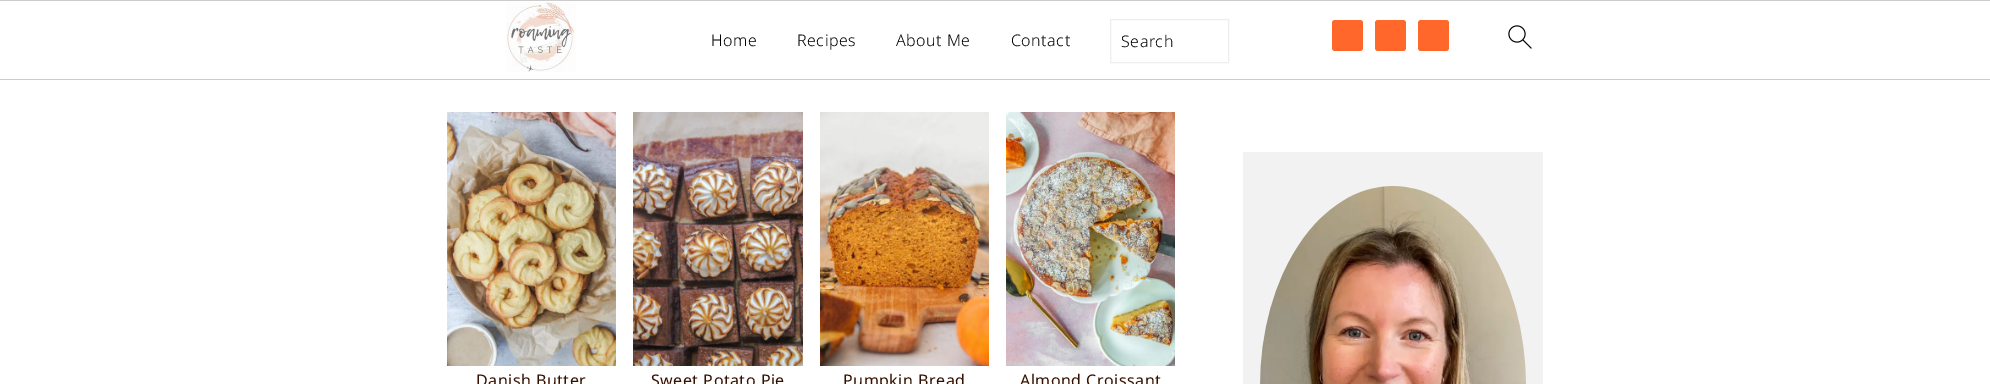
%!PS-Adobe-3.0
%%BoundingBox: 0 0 1990 384
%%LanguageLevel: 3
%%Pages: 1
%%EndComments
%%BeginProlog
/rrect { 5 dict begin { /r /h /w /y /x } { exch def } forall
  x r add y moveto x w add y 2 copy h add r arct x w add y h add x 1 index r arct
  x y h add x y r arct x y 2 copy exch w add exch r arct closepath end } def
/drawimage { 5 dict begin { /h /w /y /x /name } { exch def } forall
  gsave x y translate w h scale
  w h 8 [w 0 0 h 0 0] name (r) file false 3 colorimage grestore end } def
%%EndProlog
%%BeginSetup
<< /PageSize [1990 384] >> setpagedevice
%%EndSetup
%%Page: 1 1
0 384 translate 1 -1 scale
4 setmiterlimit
1 setgray
0 0 1990 384 rectfill
0.8 setgray
0 0 1990 1 rectfill
0 79 1990 1 rectfill
(images/1.raw) 506 2 70 70 drawimage
0.933 setgray
1110.5 19.5 118 43 rectstroke
1 0.404 0.169 setrgbcolor
1332 20 31 31 3 rrect fill
1375 20 31 31 3 rrect fill
1418 20 31 31 3 rrect fill
(images/2.raw) 1508 25 24 24 drawimage
(images/3.raw) 447 112 169 254 drawimage
(images/4.raw) 633 112 170 254 drawimage
(images/5.raw) 820 112 169 254 drawimage
(images/6.raw) 1006 112 169 254 drawimage
0.949 setgray
1243 152 300 232 rectfill
(images/7.raw) 1260 186 266 198 drawimage
/NotoSans-Light [16 0 0 -16 0 0] selectfont
0.004 setgray
711 46 moveto 0.5 0 (Home) ashow
797 46 moveto 0.5 0 (Recipes) ashow
896 46 moveto 0.5 0 (About Me) ashow
1011 46 moveto 0.5 0 (Contact) ashow
1121 47 moveto 0.5 0 (Search) ashow
/NotoSans-Regular [16 0 0 -16 0 0] selectfont
0.208 0.063 0 setrgbcolor
476 386 moveto 0.5 0 (Danish Butter) ashow
651 386 moveto 0.5 0 (Sweet Potato Pie) ashow
843 386 moveto 0.5 0 (Pumpkin Bread) ashow
1020 386 moveto 0.5 0 (Almond Croissant) ashow
showpage
%%EOF
